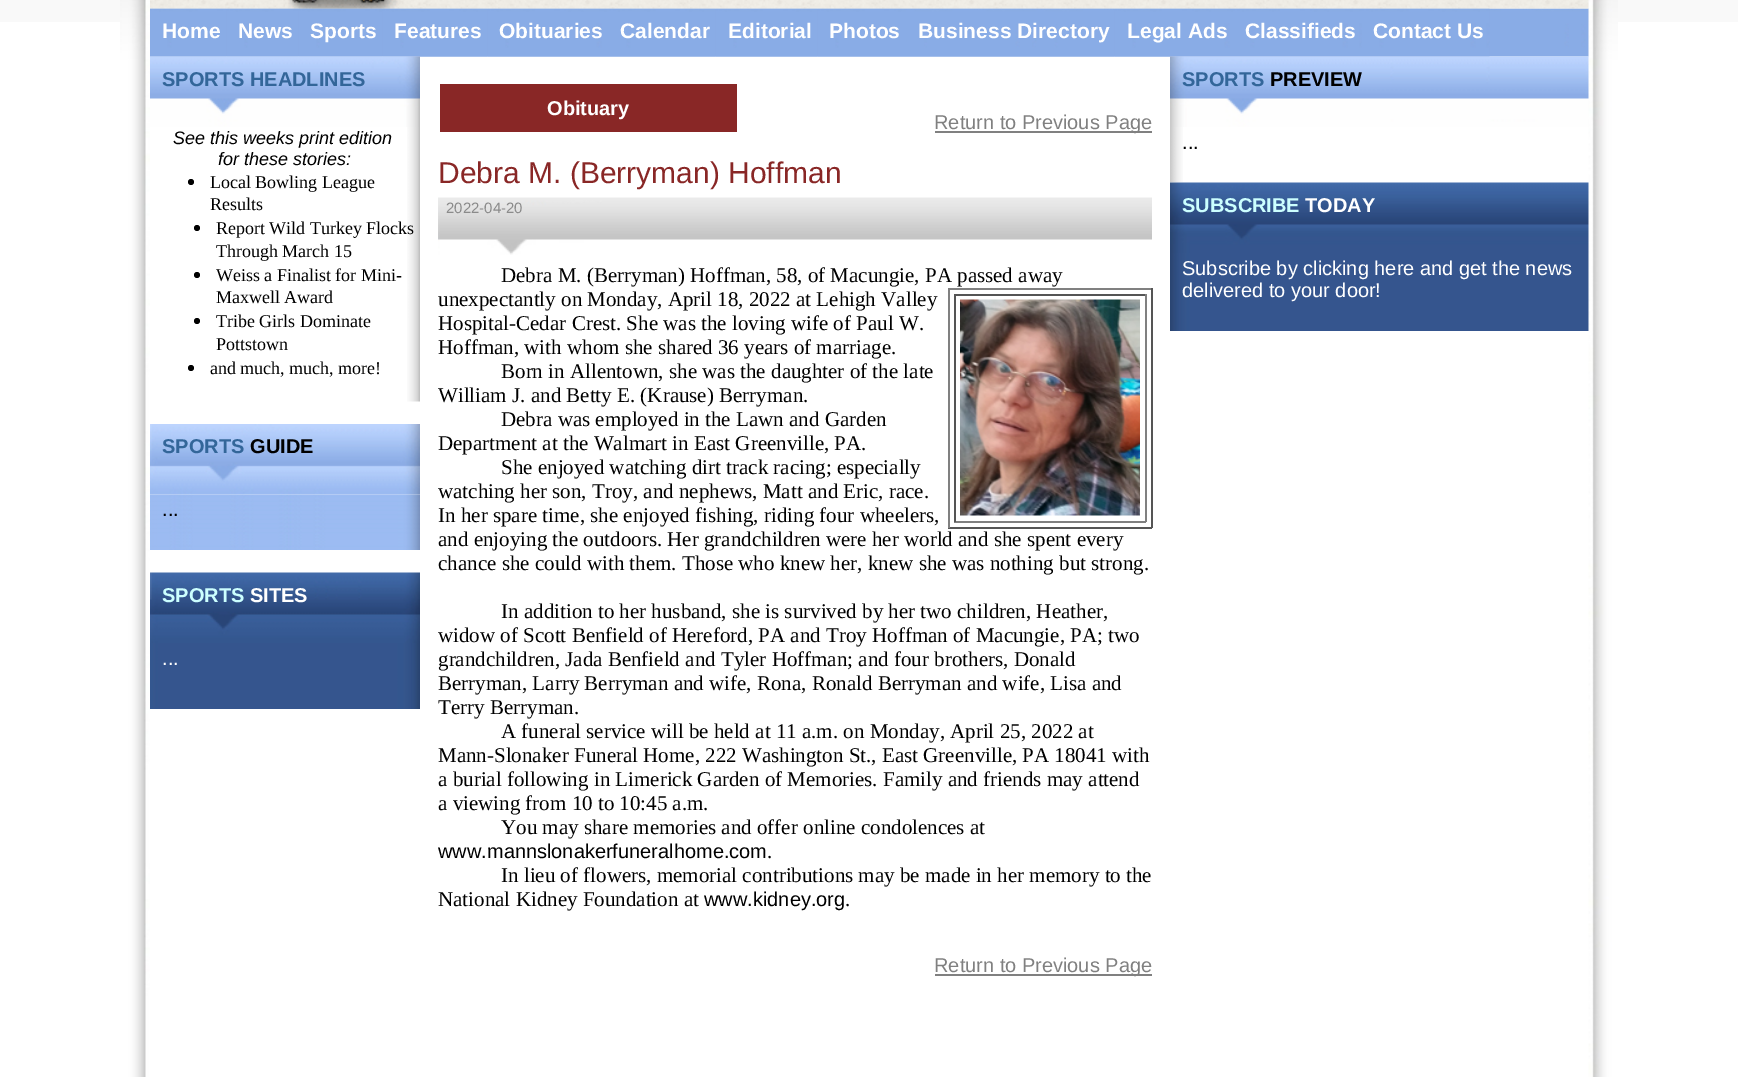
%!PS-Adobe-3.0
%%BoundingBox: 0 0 1738 1077
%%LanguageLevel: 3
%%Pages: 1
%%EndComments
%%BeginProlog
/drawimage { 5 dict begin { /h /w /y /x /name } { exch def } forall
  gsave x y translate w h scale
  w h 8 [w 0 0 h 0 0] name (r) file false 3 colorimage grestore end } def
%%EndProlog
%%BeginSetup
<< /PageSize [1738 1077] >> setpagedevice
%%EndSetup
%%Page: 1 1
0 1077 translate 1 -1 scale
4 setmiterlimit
1 setgray
0 0 1738 1077 rectfill
0.976 setgray
0 0 1738 22 rectfill
(images/1.raw) 120 0 30 1077 drawimage
(images/2.raw) 1588 0 30 1077 drawimage
(images/4.raw) 150 8 1439 49 drawimage
(images/5.raw) 150 8 77 49 drawimage
(images/6.raw) 226 8 73 49 drawimage
(images/7.raw) 298 8 85 49 drawimage
(images/8.raw) 382 8 106 49 drawimage
(images/9.raw) 487 8 122 49 drawimage
(images/10.raw) 609 8 107 49 drawimage
(images/11.raw) 715 8 103 49 drawimage
(images/12.raw) 817 8 89 49 drawimage
(images/13.raw) 906 8 209 49 drawimage
(images/14.raw) 1114 8 119 49 drawimage
(images/15.raw) 1233 8 129 49 drawimage
(images/16.raw) 1362 8 128 49 drawimage
(images/3.raw) 150 0 1439 9 drawimage
(images/17.raw) 150 56 270 71 drawimage
(images/18.raw) 407 127 13 275 drawimage
0 setgray
newpath 191 182 3 0 360 arc closepath fill
newpath 197 228 3 0 360 arc closepath fill
newpath 197 275 3 0 360 arc closepath fill
newpath 197 321 3 0 360 arc closepath fill
newpath 191 368 3 0 360 arc closepath fill
(images/19.raw) 150 424 270 71 drawimage
(images/20.raw) 150 494 270 56 drawimage
(images/21.raw) 150 572 270 71 drawimage
(images/22.raw) 150 643 270 66 drawimage
0.537 0.153 0.149 setrgbcolor
440 84 297 48 rectfill
0.502 setgray
935 131 217 2 rectfill
(images/23.raw) 438 197 714 58 drawimage
948 288 204 2 rectfill
0.333 setgray
1151 288 2 240 rectfill
948 527 204 2 rectfill
0.502 setgray
948 288 2 240 rectfill
0.333 setgray
954 294 192 2 rectfill
0.502 setgray
1145 294 2 228 rectfill
954 521 192 2 rectfill
0.333 setgray
954 294 2 228 rectfill
(images/24.raw) 960 299 180 217 drawimage
0.502 setgray
935 974 217 2 rectfill
(images/25.raw) 1170 56 419 71 drawimage
(images/26.raw) 1170 127 13 56 drawimage
(images/27.raw) 1170 182 419 71 drawimage
(images/28.raw) 1170 253 419 78 drawimage
/LiberationSans-Bold [21 0 0 -21 0 0] selectfont
1 setgray
162 38 moveto (Home) show
238 38 moveto (News) show
310 38 moveto (Sports) show
394 38 moveto (Features) show
499 38 moveto (Obituaries) show
620 38 moveto (Calendar) show
728 38 moveto (Editorial) show
829 38 moveto (Photos) show
918 38 moveto (Business Directory) show
1127 38 moveto (Legal Ads) show
1245 38 moveto (Classifieds) show
1373 38 moveto (Contact Us) show
/LiberationSans-Bold [20 0 0 -20 0 0] selectfont
0.2 0.4 0.6 setrgbcolor
162 86 moveto (SPORTS HEADLINES) show
/LiberationSans-Italic [18 0 0 -18 0 0] selectfont
0 setgray
173 144 moveto (See this weeks print edition) show
218 165 moveto (for these stories:) show
/LiberationSerif-Regular [18 0 0 -18 0 0] selectfont
210 188 moveto (Local Bowling League) show
210 210 moveto (Results) show
216 234 moveto (Report Wild Turkey Flocks) show
216 257 moveto (Through March 15) show
216 281 moveto (Weiss a Finalist for Mini-) show
216 303 moveto (Maxwell Award) show
216 327 moveto (Tribe Girls Dominate) show
216 350 moveto (Pottstown) show
210 374 moveto (and much, much, more!) show
/LiberationSans-Bold [20 0 0 -20 0 0] selectfont
0.2 0.4 0.6 setrgbcolor
162 453 moveto (SPORTS) show
0 setgray
250 453 moveto (GUIDE) show
/LiberationSans-Regular [20 0 0 -20 0 0] selectfont
162 516 moveto (...) show
/LiberationSans-Bold [20 0 0 -20 0 0] selectfont
0.8 1 1 setrgbcolor
162 602 moveto (SPORTS) show
1 setgray
250 602 moveto (SITES) show
/LiberationSans-Regular [20 0 0 -20 0 0] selectfont
162 665 moveto (...) show
/LiberationSans-Bold [20 0 0 -20 0 0] selectfont
547 115 moveto (Obituary) show
/LiberationSans-Regular [20 0 0 -20 0 0] selectfont
0.502 setgray
934 129 moveto (Return to Previous Page) show
/LiberationSans-Regular [30 0 0 -30 0 0] selectfont
0.537 0.153 0.149 setrgbcolor
438 183 moveto (Debra M. \(Berryman\) Hoffman) show
/LiberationSans-Regular [15 0 0 -15 0 0] selectfont
0.545 setgray
446 213 moveto (2022-04-20) show
/LiberationSerif-Regular [21 0 0 -21 0 0] selectfont
0 setgray
501 282 moveto (Debra M. \(Berryman\) Hoffman, 58, of Macungie, PA passed away) show
438 306 moveto (unexpectantly on Monday, April 18, 2022 at Lehigh Valley) show
438 330 moveto (Hospital-Cedar Crest. She was the loving wife of Paul W.) show
438 354 moveto (Hoffman, with whom she shared 36 years of marriage.) show
501 378 moveto (Born in Allentown, she was the daughter of the late) show
438 402 moveto (William J. and Betty E. \(Krause\) Berryman.) show
501 426 moveto (Debra was employed in the Lawn and Garden) show
438 450 moveto (Department at the Walmart in East Greenville, PA.) show
501 474 moveto (She enjoyed watching dirt track racing; especially) show
438 498 moveto (watching her son, Troy, and nephews, Matt and Eric, race.) show
438 522 moveto (In her spare time, she enjoyed fishing, riding four wheelers,) show
438 546 moveto (and enjoying the outdoors. Her grandchildren were her world and she spent every) show
438 570 moveto (chance she could with them. Those who knew her, knew she was nothing but strong.) show
501 618 moveto (In addition to her husband, she is survived by her two children, Heather,) show
438 642 moveto (widow of Scott Benfield of Hereford, PA and Troy Hoffman of Macungie, PA; two) show
438 666 moveto (grandchildren, Jada Benfield and Tyler Hoffman; and four brothers, Donald) show
438 690 moveto (Berryman, Larry Berryman and wife, Rona, Ronald Berryman and wife, Lisa and) show
438 714 moveto (Terry Berryman.) show
501 738 moveto (A funeral service will be held at 11 a.m. on Monday, April 25, 2022 at) show
438 762 moveto (Mann-Slonaker Funeral Home, 222 Washington St., East Greenville, PA 18041 with) show
438 786 moveto (a burial following in Limerick Garden of Memories. Family and friends may attend) show
438 810 moveto (a viewing from 10 to 10:45 a.m.) show
501 834 moveto (You may share memories and offer online condolences at) show
/LiberationSans-Regular [20 0 0 -20 0 0] selectfont
438 858 moveto (www.mannslonakerfuneralhome.com) show
/LiberationSerif-Regular [21 0 0 -21 0 0] selectfont
767 858 moveto (.) show
501 882 moveto (In lieu of flowers, memorial contributions may be made in her memory to the) show
438 906 moveto (National Kidney Foundation at) show
/LiberationSans-Regular [20 0 0 -20 0 0] selectfont
704 906 moveto (www.kidney.org) show
/LiberationSerif-Regular [21 0 0 -21 0 0] selectfont
845 906 moveto (.) show
/LiberationSans-Regular [20 0 0 -20 0 0] selectfont
0.502 setgray
934 972 moveto (Return to Previous Page) show
/LiberationSans-Bold [20 0 0 -20 0 0] selectfont
0.2 0.4 0.6 setrgbcolor
1182 86 moveto (SPORTS) show
0 setgray
1270 86 moveto (PREVIEW) show
/LiberationSans-Regular [20 0 0 -20 0 0] selectfont
1182 149 moveto (...) show
/LiberationSans-Bold [20 0 0 -20 0 0] selectfont
0.8 1 1 setrgbcolor
1182 212 moveto (SUBSCRIBE) show
1 setgray
1305 212 moveto (TODAY) show
/LiberationSans-Regular [20 0 0 -20 0 0] selectfont
1182 275 moveto (Subscribe by clicking here and get the news) show
1182 297 moveto (delivered to your door!) show
showpage
%%EOF
